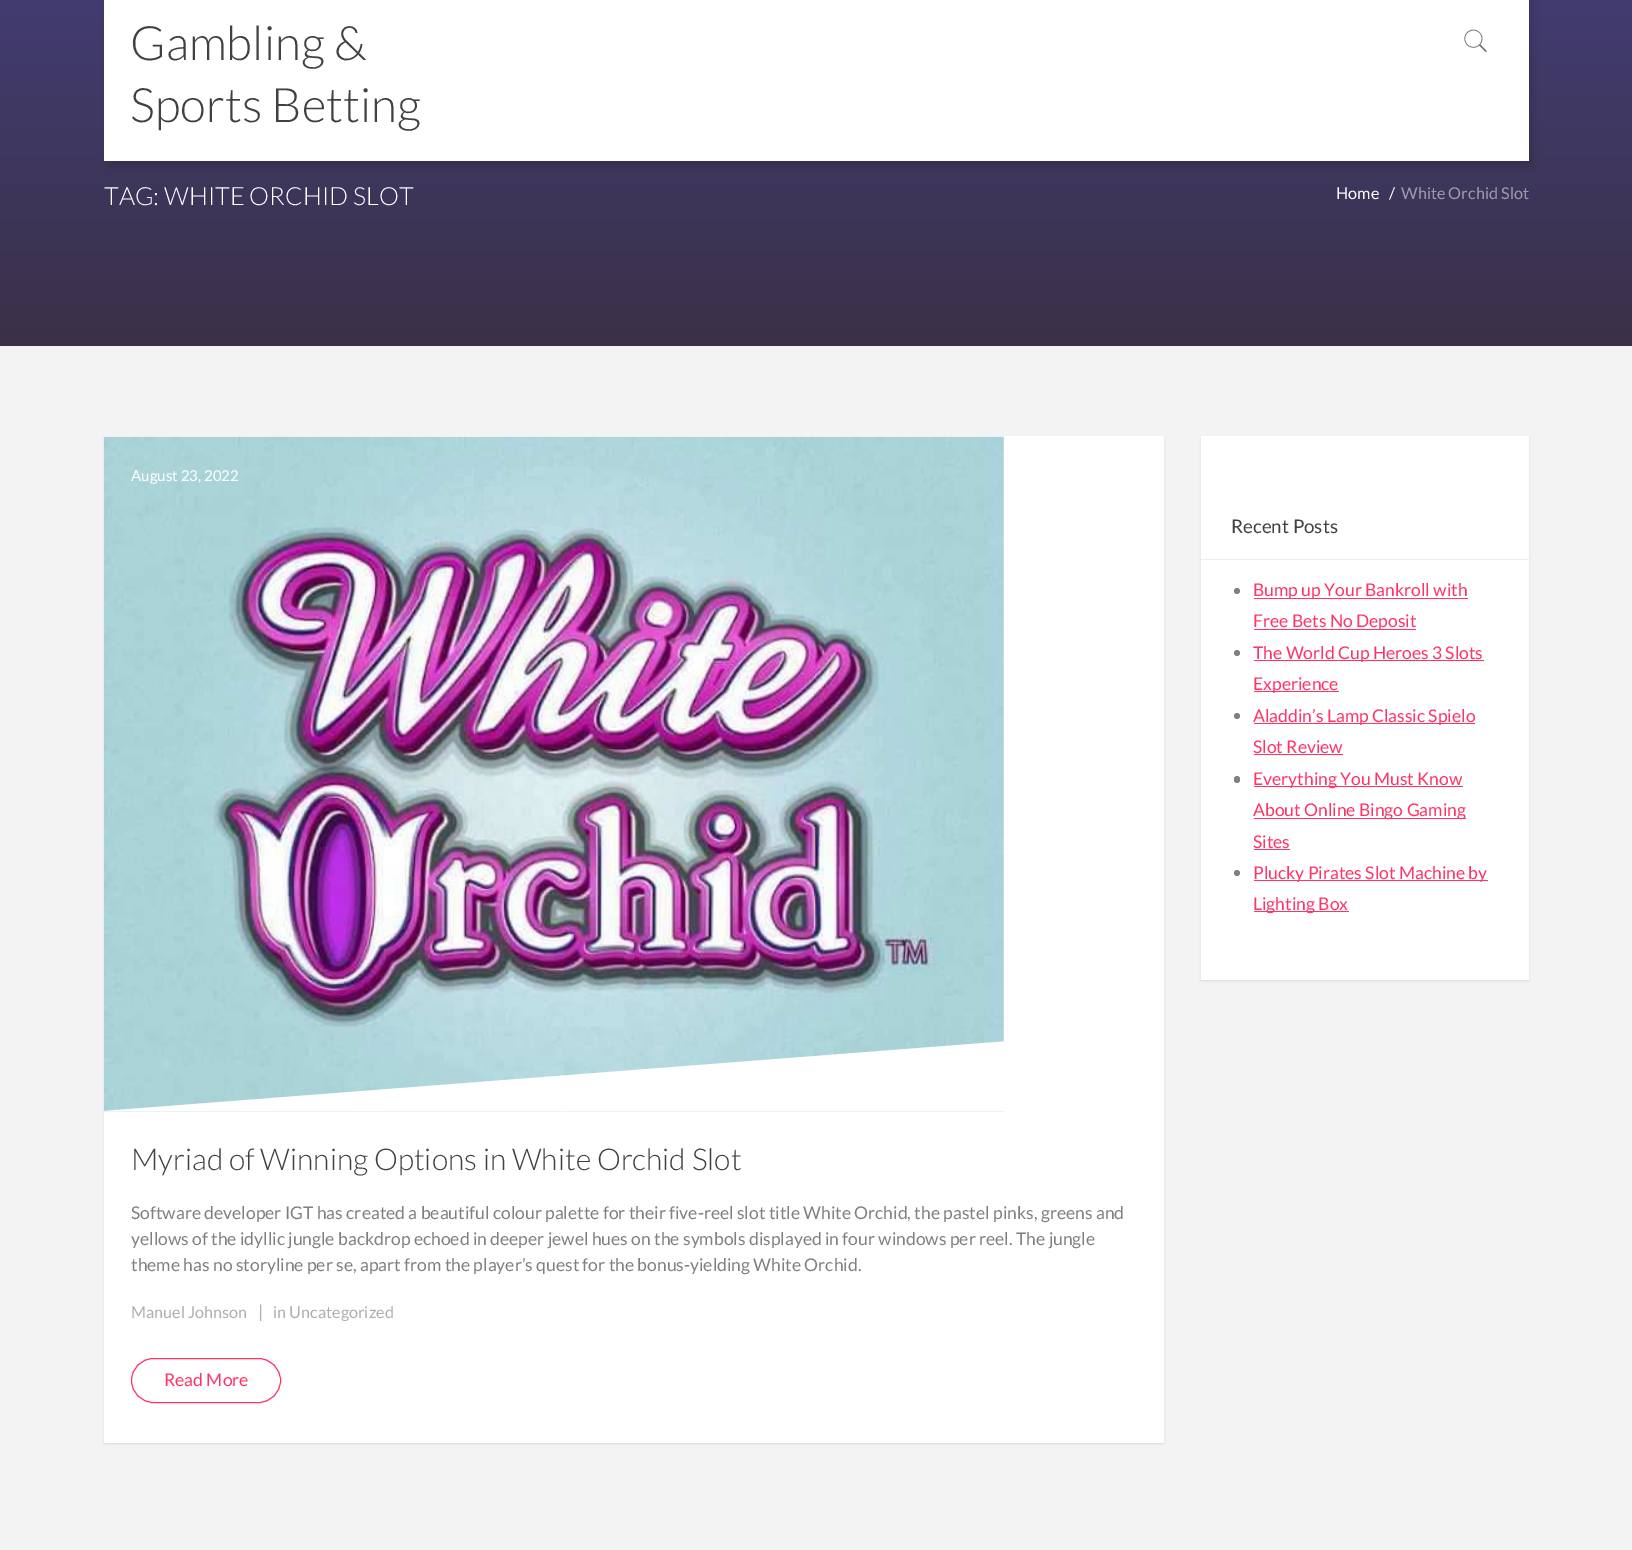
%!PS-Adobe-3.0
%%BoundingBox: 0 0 1632 1550
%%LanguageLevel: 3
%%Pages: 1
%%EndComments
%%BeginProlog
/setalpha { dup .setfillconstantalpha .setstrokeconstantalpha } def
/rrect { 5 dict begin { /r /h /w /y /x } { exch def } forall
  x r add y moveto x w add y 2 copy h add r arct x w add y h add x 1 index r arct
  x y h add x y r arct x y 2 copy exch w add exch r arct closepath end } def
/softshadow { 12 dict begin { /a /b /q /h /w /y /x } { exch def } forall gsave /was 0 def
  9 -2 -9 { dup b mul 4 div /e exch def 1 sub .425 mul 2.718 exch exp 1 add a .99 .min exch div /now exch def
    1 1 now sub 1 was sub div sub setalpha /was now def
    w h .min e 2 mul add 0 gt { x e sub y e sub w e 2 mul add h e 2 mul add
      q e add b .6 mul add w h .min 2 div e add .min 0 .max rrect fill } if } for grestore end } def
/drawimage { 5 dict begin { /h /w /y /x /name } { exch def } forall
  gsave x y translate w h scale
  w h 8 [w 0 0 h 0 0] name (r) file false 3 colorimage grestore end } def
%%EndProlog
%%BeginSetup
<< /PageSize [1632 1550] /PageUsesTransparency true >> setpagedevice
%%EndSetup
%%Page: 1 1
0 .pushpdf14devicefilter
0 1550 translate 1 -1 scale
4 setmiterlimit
0.953 setgray
0 0 1632 1550 rectfill
gsave newpath 0 0 moveto 1632 0 lineto 1632 346 lineto 0 346 lineto closepath clip newpath
<< /ShadingType 2 /ColorSpace /DeviceRGB /Coords [816 -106 816 346] /Extend [true true] /Function << /FunctionType 2 /Domain [0 1] /C0 [0.267 0.251 0.486] /C1 [0.227 0.192 0.282] /N 1 >> >> shfill grestore
0 setgray
108 -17 1425 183 0 5.5 0.15 softshadow
1 setgray
104 0 1425 161 rectfill
(images/1.raw) 1464 29 23 23 drawimage
0 setgray
104 438 1060 1006 0 1 0.1 softshadow
1 setgray
104 436 1060 1007 rectfill
(images/2.raw) 103 436 901 676 drawimage
gsave
104 436 1060 675 rectclip
newpath 1204 1111 moveto 104 1111 lineto 1204 1026 lineto closepath fill
grestore
1 0.2 0.4 setrgbcolor
131.5 1358.5 149 44 22 rrect stroke
0 setgray
1201 438 328 543 0 1 0.1 softshadow
1 setgray
1201 436 328 544 rectfill
0.933 setgray
1201 559 328 1 rectfill
0.502 setgray
newpath 1237 591 3 0 360 arc closepath fill
1 0.2 0.4 setrgbcolor
1254 598 214 1 rectfill
1254 629 162 1 rectfill
0.502 setgray
newpath 1237 653 3 0 360 arc closepath fill
1 0.2 0.4 setrgbcolor
1254 660 230 1 rectfill
1254 691 85 1 rectfill
0.502 setgray
newpath 1237 716 3 0 360 arc closepath fill
1 0.2 0.4 setrgbcolor
1254 723 221 1 rectfill
1254 754 89 1 rectfill
0.502 setgray
1234 776 6 7 3 rrect fill
1 0.2 0.4 setrgbcolor
1254 786 209 1 rectfill
1254 818 212 1 rectfill
1254 849 36 1 rectfill
0.502 setgray
newpath 1237 873 3 0 360 arc closepath fill
1 0.2 0.4 setrgbcolor
1254 880 234 1 rectfill
1254 911 95 1 rectfill
/Lato-Light [47.5 0 0 -47.5 0 0] selectfont
0.251 setgray
130 60 moveto (Gambling &) show
130 122 moveto (Sports Betting) show
/Lato-Light [25 0 0 -25 0 0] selectfont
1 setgray
104 205 moveto (TAG: WHITE ORCHID SLOT) show
/Lato-Regular [16.25 0 0 -16.25 0 0] selectfont
1336 199 moveto (Home) show
1389 199 moveto (/) show
0.62 0.608 0.675 setrgbcolor
1401 199 moveto (White Orchid Slot) show
/Lato-Regular [15 0 0 -15 0 0] selectfont
1 setgray
131 481 moveto (August 23, 2022) show
/Lato-Light [30 0 0 -30 0 0] selectfont
0.251 setgray
131 1170 moveto (Myriad of Winning Options in White Orchid Slot) show
/Lato-Regular [17.5 0 0 -17.5 0 0] selectfont
0.502 setgray
131 1219 moveto (Software developer IGT has created a beautiful colour palette for their five-reel slot title White Orchid, the pastel pinks, greens and) show
131 1245 moveto (yellows of the idyllic jungle backdrop echoed in deeper jewel hues on the symbols displayed in four windows per reel. The jungle) show
131 1271 moveto (theme has no storyline per se, apart from the player’s quest for the bonus-yielding White Orchid.) show
/Lato-Regular [16.25 0 0 -16.25 0 0] selectfont
0.682 setgray
131 1318 moveto (Manuel Johnson) show
/Lato-Regular [17.5 0 0 -17.5 0 0] selectfont
258 1318 moveto (|) show
/Lato-Regular [16.25 0 0 -16.25 0 0] selectfont
273 1318 moveto (in Uncategorized) show
/Lato-Regular [17.5 0 0 -17.5 0 0] selectfont
1 0.2 0.4 setrgbcolor
164 1386 moveto (Read More) show
/Lato-Regular [18.75 0 0 -18.75 0 0] selectfont
0.251 setgray
1231 533 moveto (Recent Posts) show
/Lato-Regular [17.5 0 0 -17.5 0 0] selectfont
1 0.2 0.4 setrgbcolor
1253 596 moveto (Bump up Your Bankroll with) show
1253 627 moveto (Free Bets No Deposit) show
1253 659 moveto (The World Cup Heroes 3 Slots) show
1253 690 moveto (Experience) show
1253 722 moveto (Aladdin’s Lamp Classic Spielo) show
1253 753 moveto (Slot Review) show
1253 785 moveto (Everything You Must Know) show
1253 816 moveto (About Online Bingo Gaming) show
1253 848 moveto (Sites) show
1253 879 moveto (Plucky Pirates Slot Machine by) show
1253 910 moveto (Lighting Box) show
.poppdf14devicefilter showpage
%%EOF
